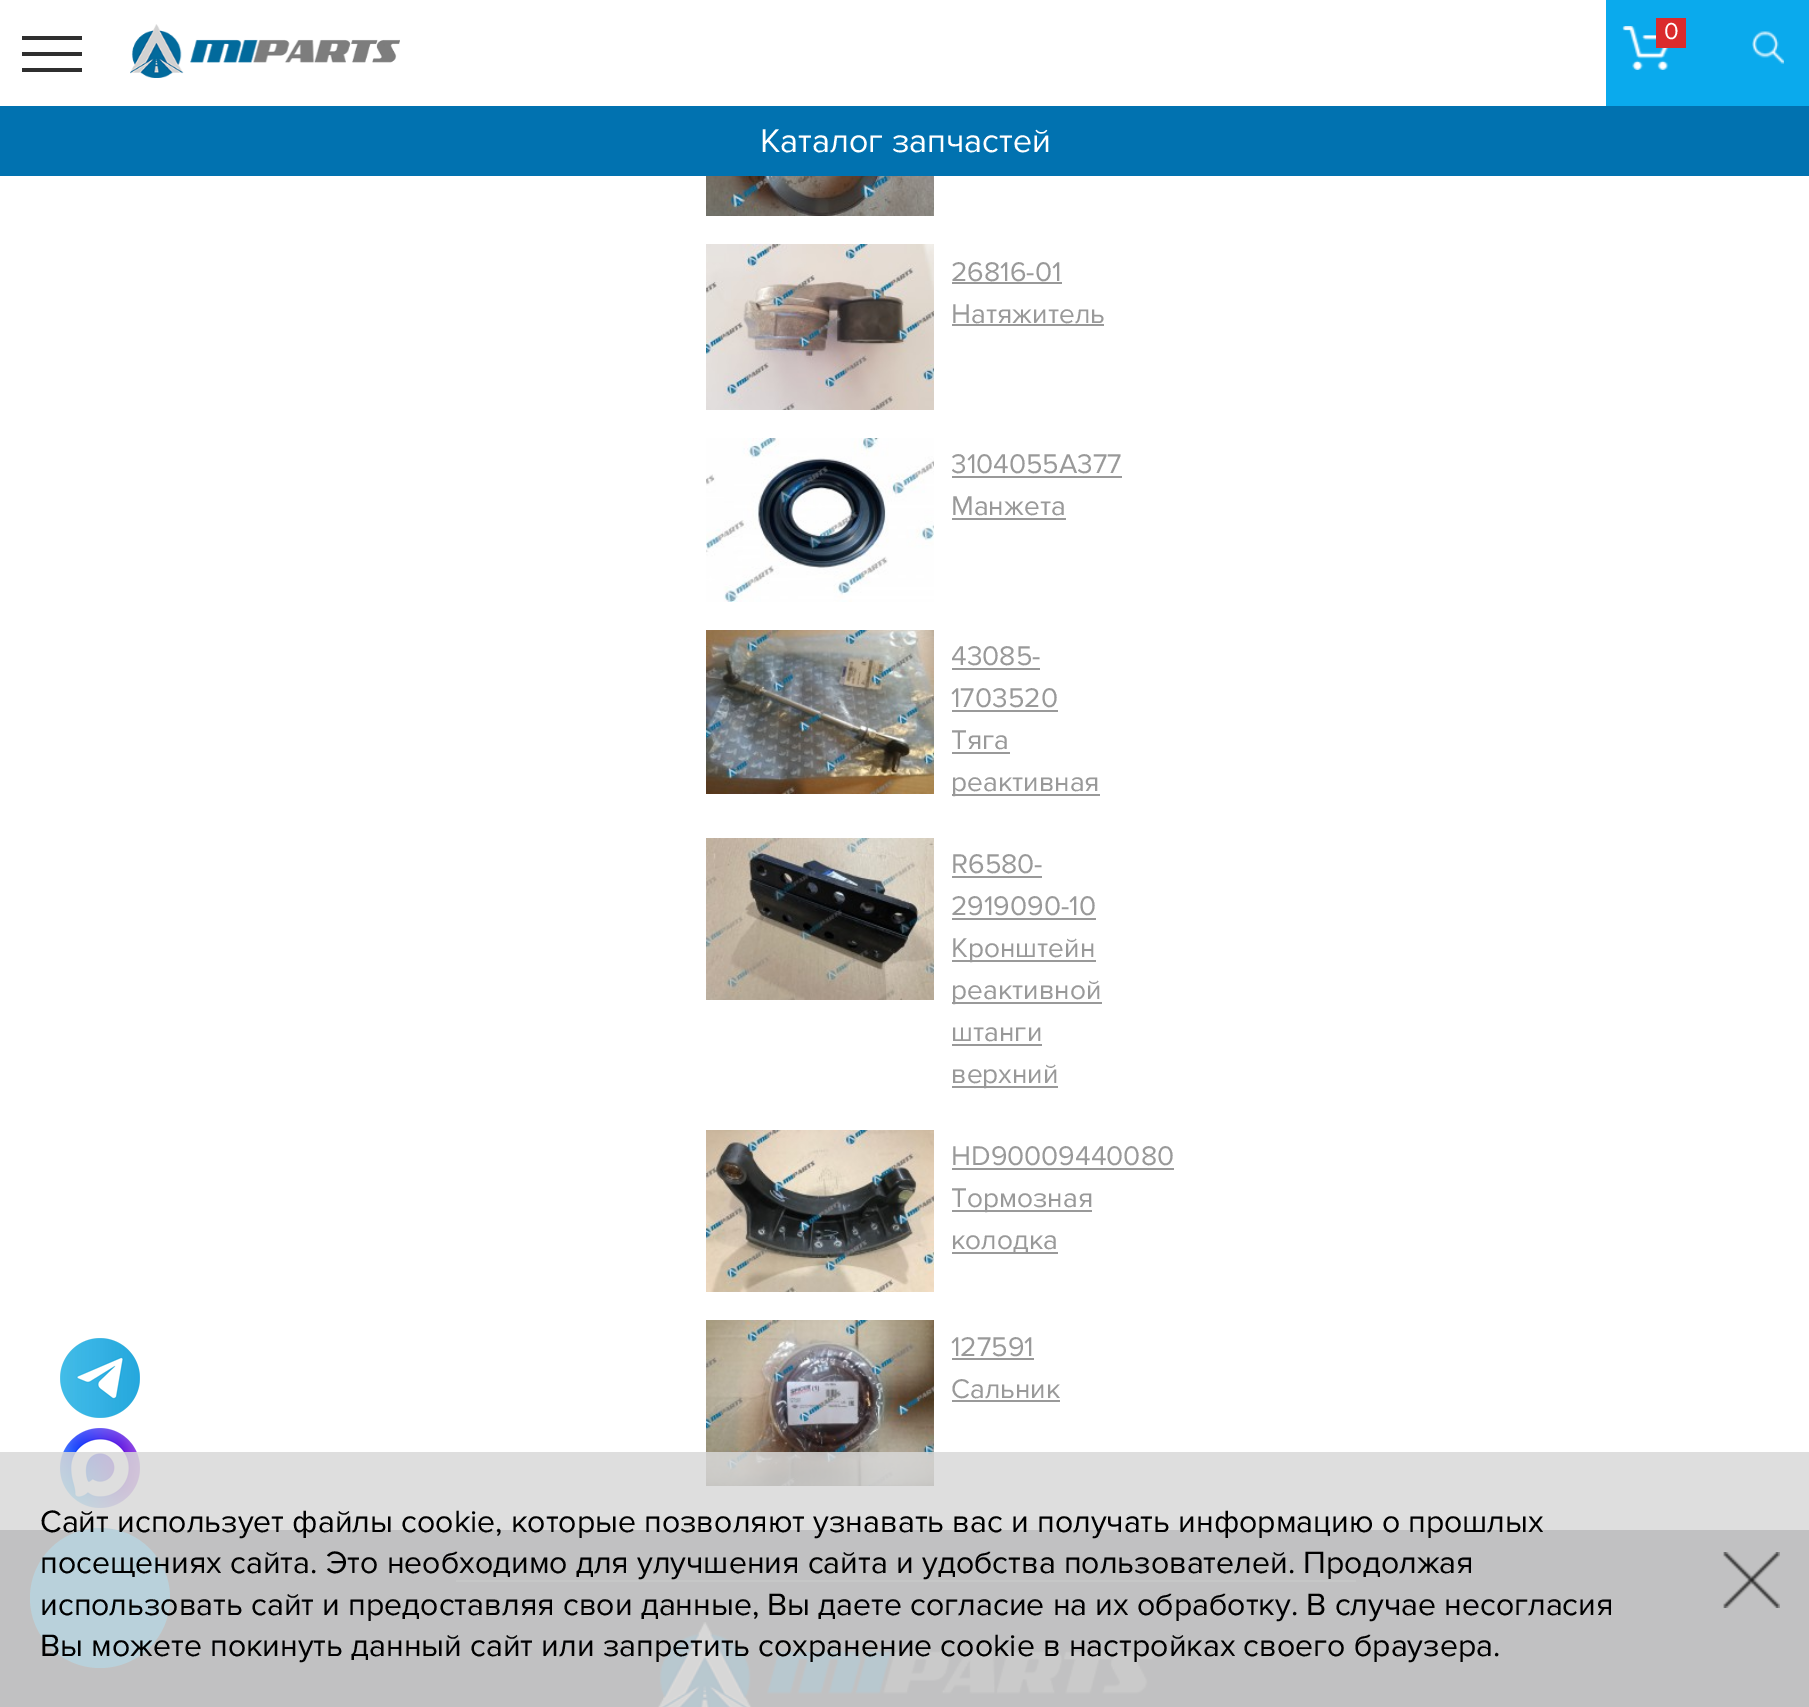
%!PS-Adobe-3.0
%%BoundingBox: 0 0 1809 1707
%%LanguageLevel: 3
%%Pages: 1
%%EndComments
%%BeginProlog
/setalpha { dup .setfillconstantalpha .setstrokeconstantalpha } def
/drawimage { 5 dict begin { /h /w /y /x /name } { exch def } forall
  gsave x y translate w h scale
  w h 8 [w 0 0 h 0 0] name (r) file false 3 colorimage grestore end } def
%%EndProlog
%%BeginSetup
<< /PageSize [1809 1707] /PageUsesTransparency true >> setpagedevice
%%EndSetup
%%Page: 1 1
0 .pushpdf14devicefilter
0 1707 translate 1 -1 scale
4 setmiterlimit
1 setgray
0 0 1809 1707 rectfill
0.184 setgray
22 36 60 4 rectfill
22 52 60 4 rectfill
22 68 60 4 rectfill
(images/1.raw) 130 24 270 54 drawimage
0.039 0.667 0.929 setrgbcolor
1606 0 203 106 rectfill
(images/2.raw) 1622 26 47 44 drawimage
0.859 0.169 0.173 setrgbcolor
1656 18 30 30 rectfill
(images/3.raw) 1752 31 32 33 drawimage
0.004 0.447 0.69 setrgbcolor
0 106 1809 70 rectfill
(images/4.raw) 706 176 228 40 drawimage
(images/5.raw) 706 244 228 166 drawimage
0.6 setgray
952 282 110 2 rectfill
952 324 152 2 rectfill
(images/6.raw) 706 438 228 164 drawimage
952 476 170 2 rectfill
952 518 114 2 rectfill
(images/7.raw) 706 630 228 164 drawimage
952 668 88 2 rectfill
952 710 106 2 rectfill
952 752 58 2 rectfill
952 794 148 2 rectfill
(images/8.raw) 706 838 228 162 drawimage
952 876 90 2 rectfill
952 918 144 2 rectfill
952 960 144 2 rectfill
952 1002 150 2 rectfill
952 1044 90 2 rectfill
952 1086 106 2 rectfill
(images/9.raw) 706 1130 228 162 drawimage
952 1168 222 2 rectfill
952 1210 140 2 rectfill
952 1252 106 2 rectfill
(images/10.raw) 706 1320 228 166 drawimage
952 1358 82 2 rectfill
952 1400 108 2 rectfill
(images/11.raw) 60 1338 80 80 drawimage
(images/12.raw) 60 1428 80 80 drawimage
0.255 0.255 0.263 setrgbcolor
0 1530 1809 177 rectfill
0.039 0.667 0.929 setrgbcolor
newpath 100 1598 70 0 360 arc closepath fill
0.384 0.388 0.396 setrgbcolor
456 1580 900 2 rectfill
(images/14.raw) 658 1622 496 85 drawimage
0.85 setalpha
0.847 setgray
0 1452 1809 255 rectfill
1 setalpha
(images/13.raw) 1723 1552 57 56 drawimage
/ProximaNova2-Regular [24 0 0 -24 0 0] selectfont
1 setgray
1664 39 moveto (0) show
/ProximaNova2-Regular [34 0 0 -34 0 0] selectfont
760 152 moveto (Каталог запчастей) show
/ProximaNova-Regular [28 0 0 -28 0 0] selectfont
0.6 setgray
951 281 moveto (26816-01) show
951 323 moveto (Натяжитель) show
951 473 moveto (3104055A377) show
951 515 moveto (Манжета) show
951 665 moveto (43085-) show
951 707 moveto (1703520) show
951 749 moveto (Тяга) show
951 791 moveto (реактивная) show
951 873 moveto (R6580-) show
951 915 moveto (2919090-10) show
951 957 moveto (Кронштейн) show
951 999 moveto (реактивной) show
951 1041 moveto (штанги) show
951 1083 moveto (верхний) show
951 1165 moveto (HD90009440080) show
951 1207 moveto (Тормозная) show
951 1249 moveto (колодка) show
951 1356 moveto (127591) show
951 1398 moveto (Сальник) show
/ProximaNova-Regular [32 0 0 -32 0 0] selectfont
0 setgray
40 1532 moveto (Сайт использует файлы cookie, которые позволяют узнавать вас и получать информацию о прошлых) show
40 1573 moveto (посещениях сайта. Это необходимо для улучшения сайта и удобства пользователей. Продолжая) show
40 1615 moveto (использовать сайт и предоставляя свои данные, Вы даете согласие на их обработку. В случае несогласия) show
40 1656 moveto (Вы можете покинуть данный сайт или запретить сохранение cookie в настройках своего браузера.) show
.poppdf14devicefilter showpage
%%EOF
